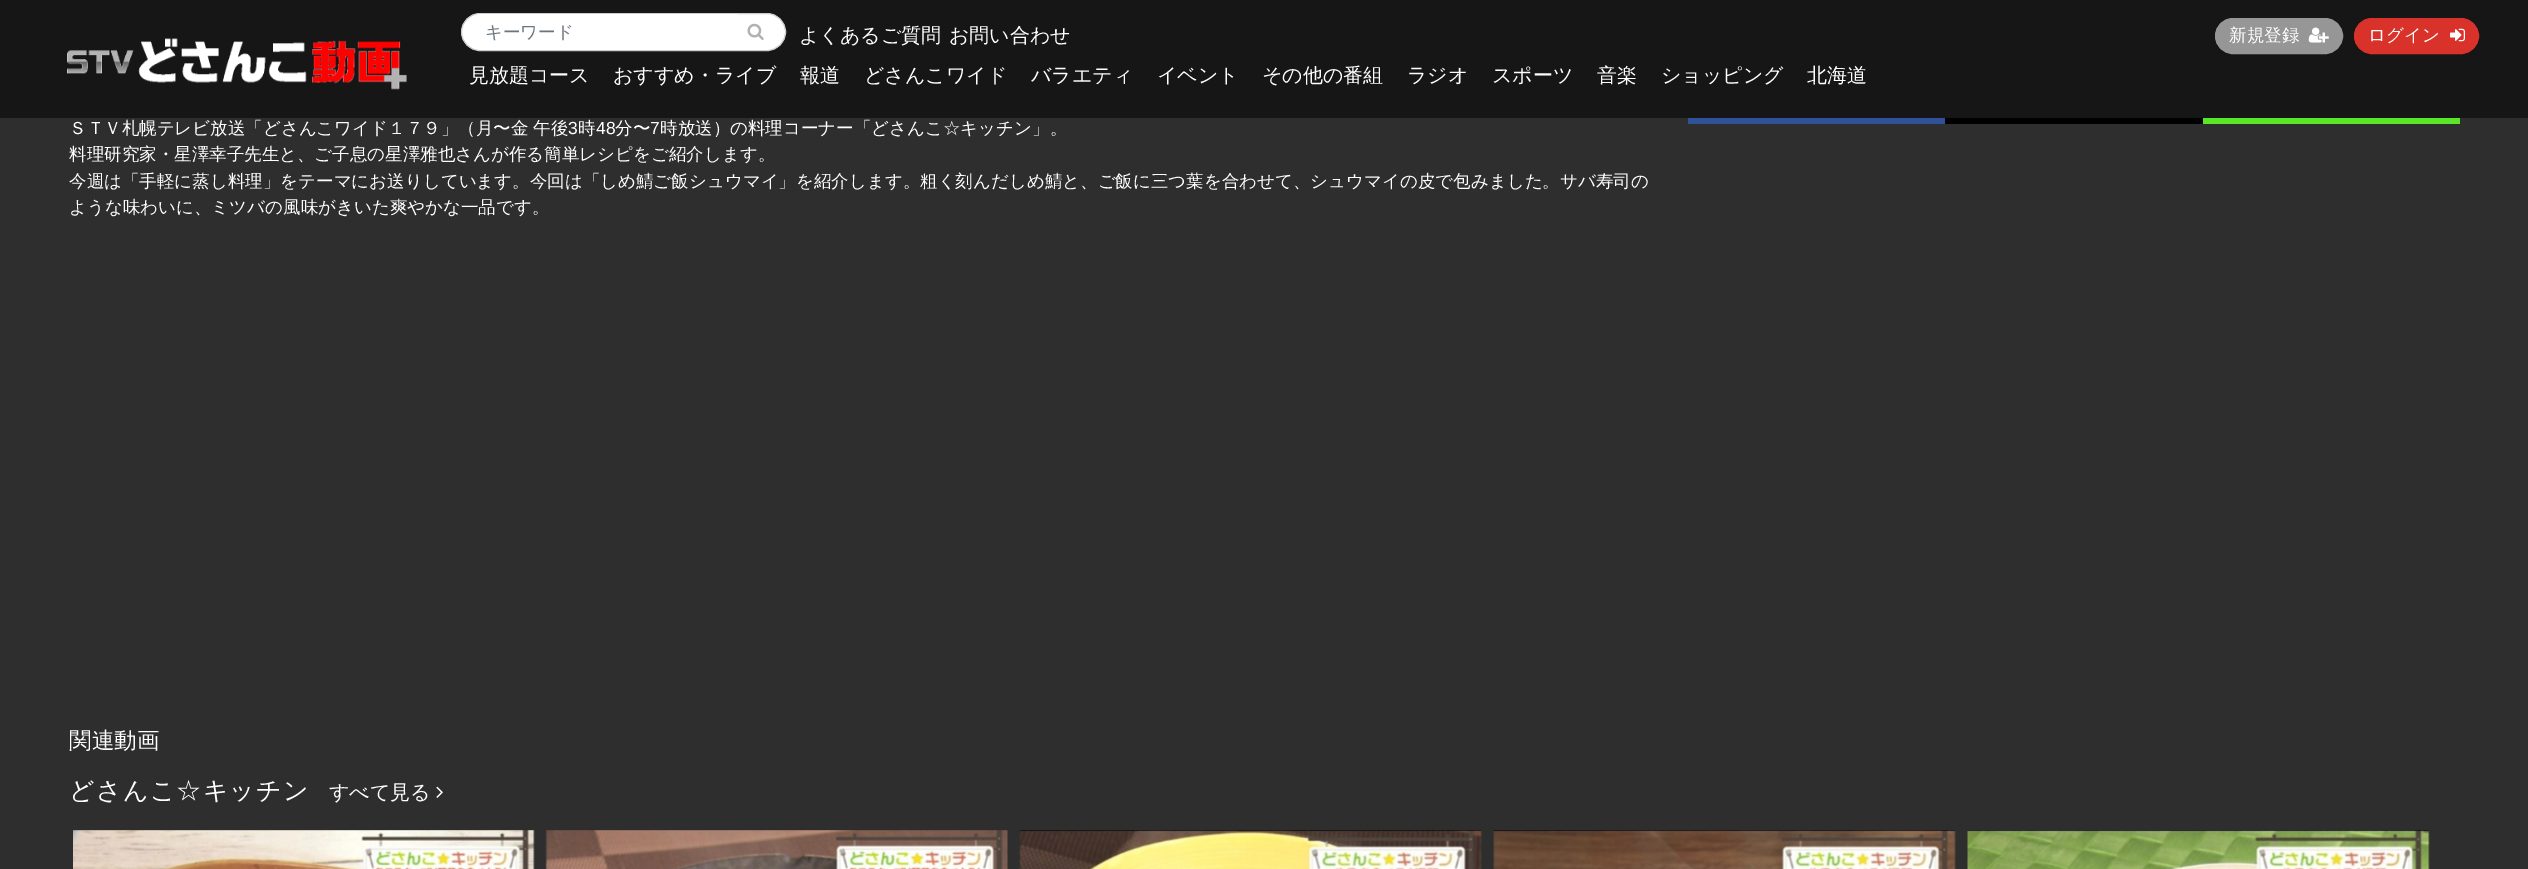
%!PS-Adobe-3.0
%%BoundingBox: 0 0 2528 869
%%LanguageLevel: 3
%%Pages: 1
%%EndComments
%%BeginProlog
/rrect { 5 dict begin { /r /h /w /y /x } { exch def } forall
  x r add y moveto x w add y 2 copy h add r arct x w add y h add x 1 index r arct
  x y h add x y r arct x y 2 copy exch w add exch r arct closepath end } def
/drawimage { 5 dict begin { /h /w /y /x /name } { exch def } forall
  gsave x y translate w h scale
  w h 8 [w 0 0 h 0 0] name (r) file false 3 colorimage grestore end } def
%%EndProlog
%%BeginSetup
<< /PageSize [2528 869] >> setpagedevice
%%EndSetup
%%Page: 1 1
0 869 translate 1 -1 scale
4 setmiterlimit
0.18 setgray
0 0 2528 869 rectfill
0.086 setgray
0 0 2528 118 rectfill
(images/1.raw) 67 38 340 52 drawimage
1 setgray
461.5 13.5 324 37 18.5 rrect gsave fill grestore
0.8 setgray
stroke
1 setgray
newpath 479 14 moveto 738 14 lineto 738 49 lineto 479 49 lineto 477 49 475 47 475 45 curveto 475 18 lineto 475 16 477 14 479 14 curveto closepath fill
(images/2.raw) 747 23 17 17 drawimage
0.588 setgray
2215.5 18.5 127 35 17.5 rrect gsave fill grestore
stroke
(images/3.raw) 2308 27 21 16 drawimage
0.847 0.196 0.165 setrgbcolor
2354.5 18.5 124 35 17.5 rrect gsave fill grestore
stroke
(images/4.raw) 2450 28 15 14 drawimage
0.188 0.314 0.592 setrgbcolor
1688 118 257 6 rectfill
0 setgray
1945 118 258 6 rectfill
0.353 0.902 0.157 setrgbcolor
2203 118 257 6 rectfill
(images/5.raw) 436 786 7 12 drawimage
(images/6.raw) 73 830 462 39 drawimage
(images/7.raw) 545 830 463 39 drawimage
(images/8.raw) 1019 830 463 39 drawimage
(images/9.raw) 1493 830 463 39 drawimage
(images/10.raw) 1967 830 463 39 drawimage
/WenQuanYiZenHei-Medium [17.5 0 0 -17.5 0 0] selectfont
0.424 0.459 0.49 setrgbcolor
485 38 moveto (キーワード) show
/WenQuanYiZenHei-Medium [20 0 0 -20 0 0] selectfont
1 setgray
799 42 moveto (よくあるご質問) show
949 42 moveto (お問い合わせ) show
/WenQuanYiZenHei-Medium [17.5 0 0 -17.5 0 0] selectfont
2229 41 moveto (新規登録) show
2368 41 moveto (ログイン) show
/WenQuanYiZenHei-Medium [20 0 0 -20 0 0] selectfont
469 82 moveto (見放題コース) show
613 82 moveto (おすすめ・ライブ) show
800 82 moveto (報道) show
864 82 moveto (どさんこワイド) show
1031 82 moveto (バラエティ) show
1157 82 moveto (イベント) show
1262 82 moveto (その他の番組) show
1407 82 moveto (ラジオ) show
1492 82 moveto (スポーツ) show
1597 82 moveto (音楽) show
1661 82 moveto (ショッピング) show
1807 82 moveto (北海道) show
/WenQuanYiZenHei-Medium [17.5 0 0 -17.5 0 0] selectfont
69 134 moveto (ＳＴＶ札幌テレビ放送「どさんこワイド１７９」（月〜金 午後) show
/LiberationSans-Regular [17.5 0 0 -17.5 0 0] selectfont
568 134 moveto (3) show
/WenQuanYiZenHei-Medium [17.5 0 0 -17.5 0 0] selectfont
578 134 moveto (時) show
/LiberationSans-Regular [17.5 0 0 -17.5 0 0] selectfont
596 134 moveto (48) show
/WenQuanYiZenHei-Medium [17.5 0 0 -17.5 0 0] selectfont
615 134 moveto (分〜) show
/LiberationSans-Regular [17.5 0 0 -17.5 0 0] selectfont
650 134 moveto (7) show
/WenQuanYiZenHei-Medium [17.5 0 0 -17.5 0 0] selectfont
660 134 moveto (時放送）の料理コーナー「どさんこ☆キッチン」。) show
69 160 moveto (料理研究家・星澤幸子先生と、ご子息の星澤雅也さんが作る簡単レシピをご紹介します。) show
69 187 moveto (今週は「手軽に蒸し料理」をテーマにお送りしています。今回は「しめ鯖ご飯シュウマイ」を紹介します。粗く刻んだしめ鯖と、ご飯に三つ葉を合わせて、シュウマイの皮で包みました。サバ寿司の) show
69 213 moveto (ような味わいに、ミツバの風味がきいた爽やかな一品です。) show
/WenQuanYiZenHei-Medium [22.5 0 0 -22.5 0 0] selectfont
69 748 moveto (関連動画) show
/WenQuanYiZenHei-Medium [25 0 0 -25 0 0] selectfont
69 799 moveto 1.25 0 (どさんこ☆キッチン) ashow
/WenQuanYiZenHei-Medium [20 0 0 -20 0 0] selectfont
329 799 moveto (すべて見る) show
showpage
%%EOF
